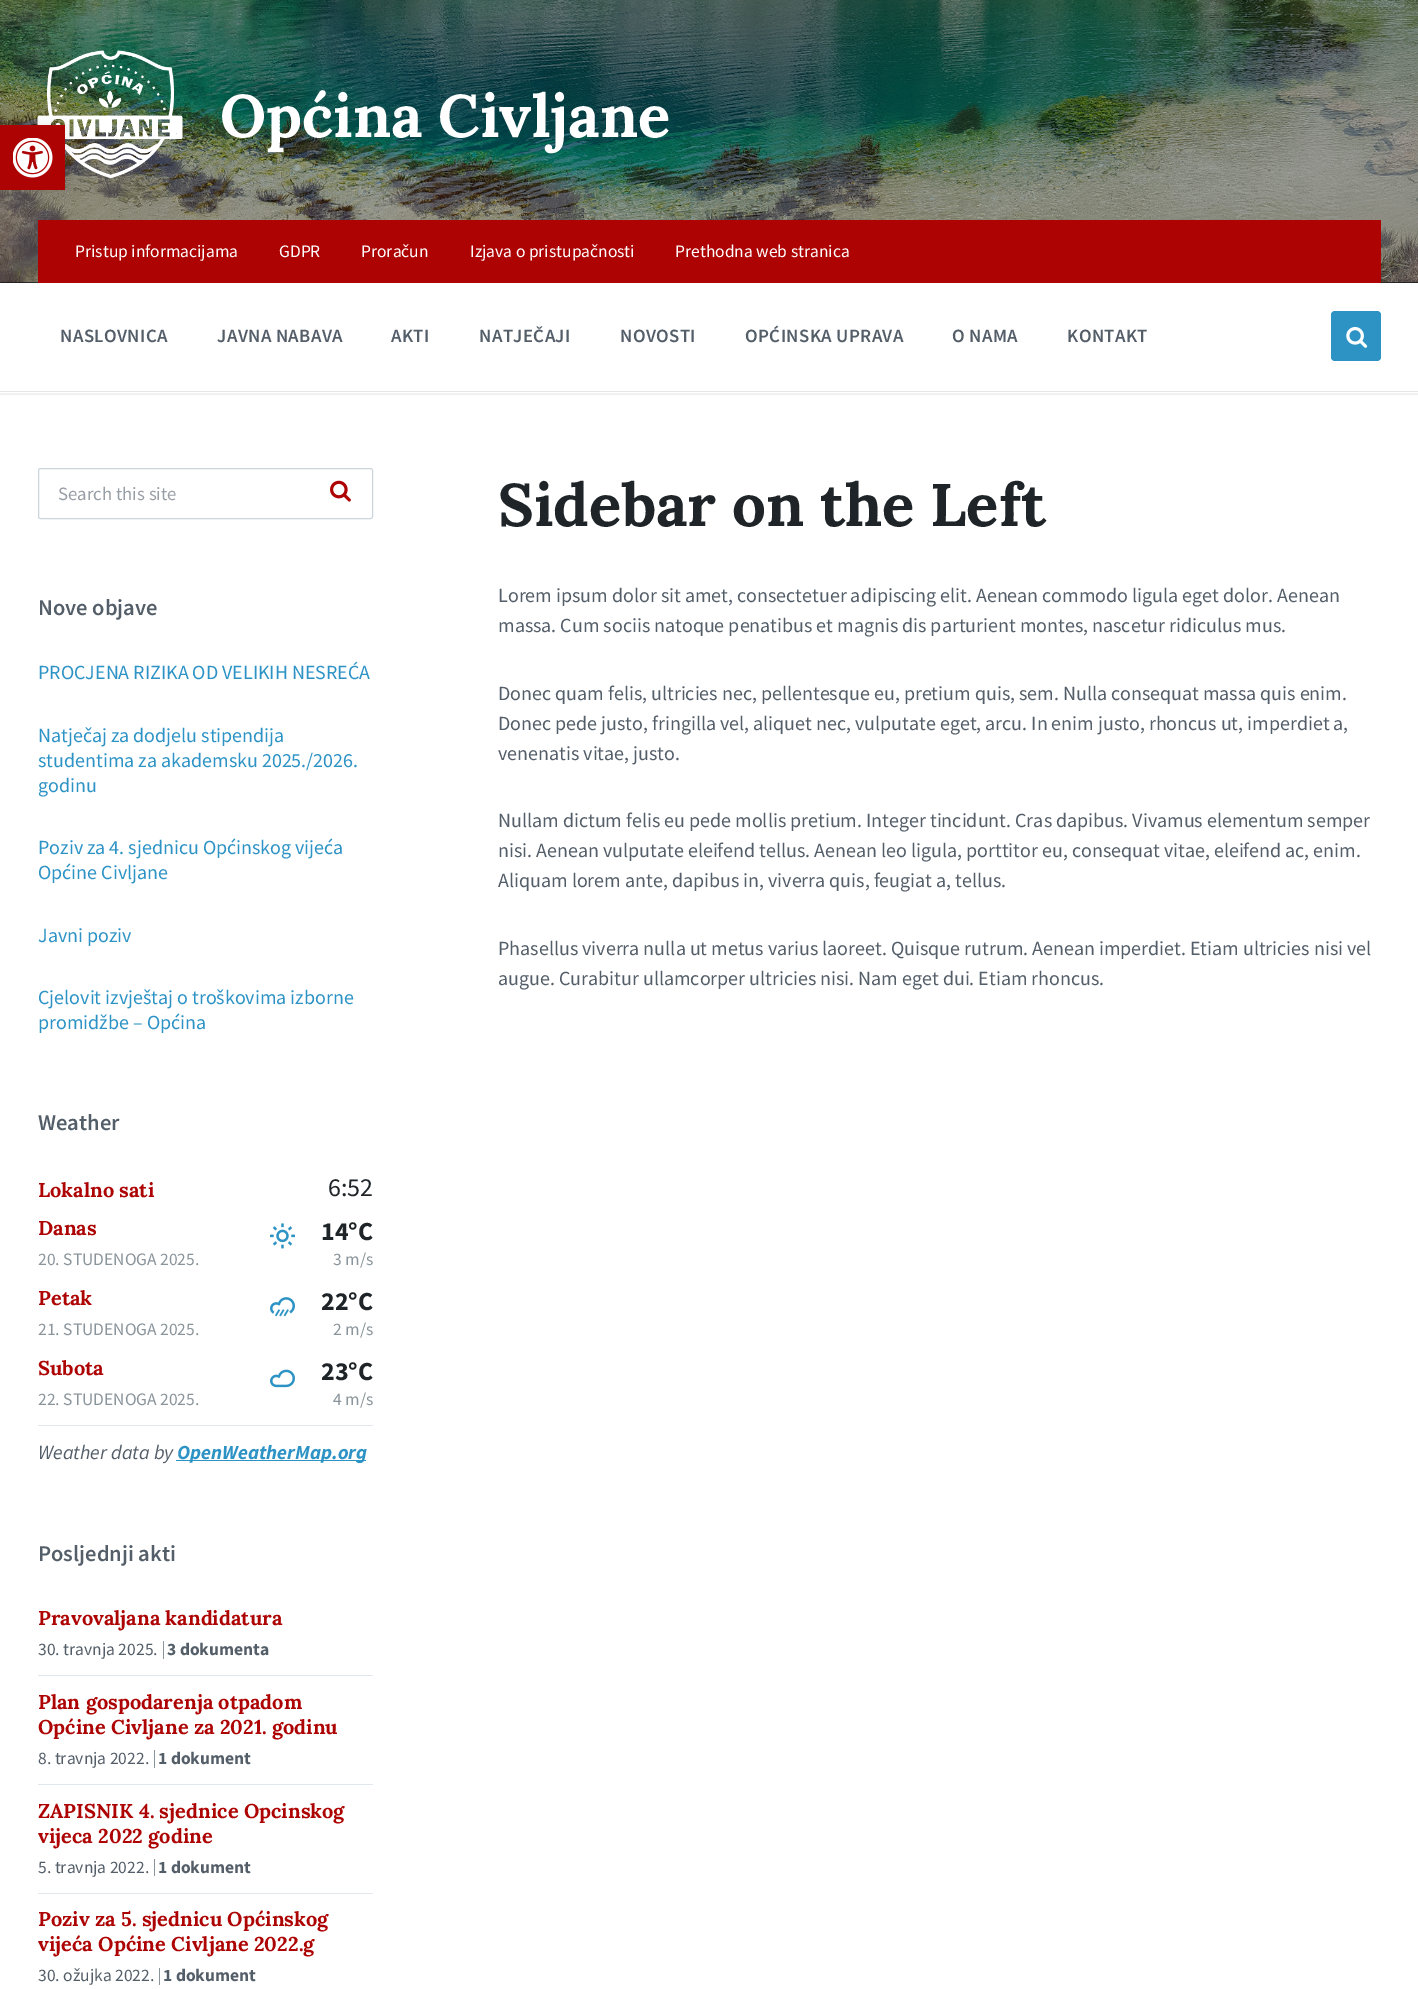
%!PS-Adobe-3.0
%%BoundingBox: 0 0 1418 1989
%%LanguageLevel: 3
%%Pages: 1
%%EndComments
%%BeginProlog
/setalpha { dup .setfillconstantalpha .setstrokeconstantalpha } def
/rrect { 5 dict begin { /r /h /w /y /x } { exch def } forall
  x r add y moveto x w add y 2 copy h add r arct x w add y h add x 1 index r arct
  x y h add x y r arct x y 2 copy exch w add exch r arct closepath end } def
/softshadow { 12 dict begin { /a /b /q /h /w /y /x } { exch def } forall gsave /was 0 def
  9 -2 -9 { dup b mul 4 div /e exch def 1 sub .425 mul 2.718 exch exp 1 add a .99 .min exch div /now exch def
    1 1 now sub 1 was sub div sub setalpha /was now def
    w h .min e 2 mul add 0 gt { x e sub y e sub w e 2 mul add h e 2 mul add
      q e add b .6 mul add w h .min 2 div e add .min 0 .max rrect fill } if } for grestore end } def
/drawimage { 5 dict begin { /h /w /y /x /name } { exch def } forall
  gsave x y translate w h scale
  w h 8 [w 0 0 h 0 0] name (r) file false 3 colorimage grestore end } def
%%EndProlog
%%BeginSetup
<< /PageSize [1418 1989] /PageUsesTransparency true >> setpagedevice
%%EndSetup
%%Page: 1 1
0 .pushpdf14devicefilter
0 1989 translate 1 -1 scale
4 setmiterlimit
1 setgray
0 0 1418 1989 rectfill
0.949 setgray
3 setlinewidth
-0.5 281.5 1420 112 rectstroke
0.118 0.141 0.153 setrgbcolor
0 282 1418 1 rectfill
(images/1.raw) 0 0 1418 283 drawimage
0.35 setalpha
0 setgray
0 0 1418 283 rectfill
1 setalpha
(images/2.raw) 37 50 146 128 drawimage
0.678 0.012 0.012 setrgbcolor
38 220 1343 63 rectfill
1 setgray
0 283 1418 110 rectfill
0.902 setgray
0 391 1418 1 rectfill
0.176 0.576 0.773 setrgbcolor
1331 311 50 50 4 rrect fill
(images/3.raw) 1346 327 22 21 drawimage
0.8 0.835 0.859 setrgbcolor
1 setlinewidth
38.5 468.5 334 50 2 rrect stroke
(images/4.raw) 330 480 21 22 drawimage
(images/5.raw) 270 1223 25 26 drawimage
(images/6.raw) 270 1297 25 20 drawimage
(images/7.raw) 270 1369 25 19 drawimage
0.882 0.906 0.925 setrgbcolor
38 1425 335 1 rectfill
0.176 0.576 0.773 setrgbcolor
176 1460 190 1 rectfill
0.541 0.58 0.608 setrgbcolor
163 1641 1 18 rectfill
0.882 0.906 0.925 setrgbcolor
38 1675 335 1 rectfill
0.541 0.58 0.608 setrgbcolor
154 1750 1 18 rectfill
0.882 0.906 0.925 setrgbcolor
38 1784 335 1 rectfill
0.541 0.58 0.608 setrgbcolor
154 1859 1 17 rectfill
0.882 0.906 0.925 setrgbcolor
38 1893 335 1 rectfill
0.541 0.58 0.608 setrgbcolor
159 1968 1 17 rectfill
0 setgray
0 125 65 65 0 6 0.1 softshadow
0.678 0.012 0.012 setrgbcolor
0 125 65 65 rectfill
(images/8.raw) 13 138 40 40 drawimage
/Lora-Bold [60 0 0 -60 0 0] selectfont
1 setgray
220 137 moveto (Općina Civljane) show
/SourceSansPro-Regular [17.5 0 0 -17.5 0 0] selectfont
75 257 moveto (Pristup informacijama) show
279 257 moveto (GDPR) show
361 257 moveto (Proračun) show
470 257 moveto (Izjava o pristupačnosti) show
675 257 moveto (Prethodna web stranica) show
/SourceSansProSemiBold-SemiBold [18.75 0 0 -18.75 0 0] selectfont
0.329 0.369 0.412 setrgbcolor
60 342 moveto 0.4 0 (NASLOVNICA) ashow
217 342 moveto 0.4 0 (JAVNA NABAVA) ashow
391 342 moveto 0.4 0 (AKTI) ashow
479 342 moveto 0.4 0 (NATJEČAJI) ashow
620 342 moveto 0.4 0 (NOVOSTI) ashow
745 342 moveto 0.4 0 (OPĆINSKA UPRAVA) ashow
952 342 moveto 0.4 0 (O NAMA) ashow
1067 342 moveto 0.4 0 (KONTAKT) ashow
/SourceSansPro-Regular [18.75 0 0 -18.75 0 0] selectfont
0.596 0.62 0.647 setrgbcolor
58 500 moveto (Search this site) show
/SourceSansProSemiBold-SemiBold [22.5 0 0 -22.5 0 0] selectfont
0.329 0.369 0.412 setrgbcolor
38 615 moveto (Nove objave) show
/SourceSansPro-Regular [20 0 0 -20 0 0] selectfont
0.176 0.576 0.773 setrgbcolor
38 679 moveto (PROCJENA RIZIKA OD VELIKIH NESREĆA) show
38 742 moveto (Natječaj za dodjelu stipendija) show
38 767 moveto (studentima za akademsku 2025./2026.) show
38 792 moveto (godinu) show
38 854 moveto (Poziv za 4. sjednicu Općinskog vijeća) show
38 879 moveto (Općine Civljane) show
38 942 moveto (Javni poziv) show
38 1004 moveto (Cjelovit izvještaj o troškovima izborne) show
38 1029 moveto (promidžbe – Općina) show
/SourceSansProSemiBold-SemiBold [22.5 0 0 -22.5 0 0] selectfont
0.329 0.369 0.412 setrgbcolor
38 1130 moveto (Weather) show
/Lora-Bold [20 0 0 -20 0 0] selectfont
0.678 0.012 0.012 setrgbcolor
38 1197 moveto (Lokalno sati) show
/SourceSansPro-Regular [26 0 0 -26 0 0] selectfont
0.118 0.141 0.153 setrgbcolor
328 1196 moveto (6:52) show
/Lora-Bold [20 0 0 -20 0 0] selectfont
0.678 0.012 0.012 setrgbcolor
38 1235 moveto (Danas) show
/SourceSansPro-Regular [17.5 0 0 -17.5 0 0] selectfont
0.541 0.58 0.608 setrgbcolor
38 1265 moveto (20. STUDENOGA 2025.) show
/SourceSansPro-Bold [26 0 0 -26 0 0] selectfont
0.118 0.141 0.153 setrgbcolor
321 1240 moveto (14°C) show
/SourceSansPro-Regular [17.5 0 0 -17.5 0 0] selectfont
0.541 0.58 0.608 setrgbcolor
333 1265 moveto (3 m/s) show
/Lora-Bold [20 0 0 -20 0 0] selectfont
0.678 0.012 0.012 setrgbcolor
38 1305 moveto (Petak) show
/SourceSansPro-Regular [17.5 0 0 -17.5 0 0] selectfont
0.541 0.58 0.608 setrgbcolor
38 1335 moveto (21. STUDENOGA 2025.) show
/SourceSansPro-Bold [26 0 0 -26 0 0] selectfont
0.118 0.141 0.153 setrgbcolor
321 1310 moveto (22°C) show
/SourceSansPro-Regular [17.5 0 0 -17.5 0 0] selectfont
0.541 0.58 0.608 setrgbcolor
333 1335 moveto (2 m/s) show
/Lora-Bold [20 0 0 -20 0 0] selectfont
0.678 0.012 0.012 setrgbcolor
38 1375 moveto (Subota) show
/SourceSansPro-Regular [17.5 0 0 -17.5 0 0] selectfont
0.541 0.58 0.608 setrgbcolor
38 1405 moveto (22. STUDENOGA 2025.) show
/SourceSansPro-Bold [26 0 0 -26 0 0] selectfont
0.118 0.141 0.153 setrgbcolor
321 1380 moveto (23°C) show
/SourceSansPro-Regular [17.5 0 0 -17.5 0 0] selectfont
0.541 0.58 0.608 setrgbcolor
333 1405 moveto (4 m/s) show
/SourceSansPro-Italic [20 0 0 -20 0 0] selectfont
0.329 0.369 0.412 setrgbcolor
38 1459 moveto (Weather data by) show
/SourceSansPro-BoldItalic [20 0 0 -20 0 0] selectfont
0.176 0.576 0.773 setrgbcolor
177 1459 moveto (OpenWeatherMap.org) show
/SourceSansProSemiBold-SemiBold [22.5 0 0 -22.5 0 0] selectfont
0.329 0.369 0.412 setrgbcolor
38 1561 moveto (Posljednji akti) show
/Lora-Bold [20 0 0 -20 0 0] selectfont
0.678 0.012 0.012 setrgbcolor
38 1625 moveto (Pravovaljana kandidatura) show
/SourceSansPro-Regular [17.5 0 0 -17.5 0 0] selectfont
0.329 0.369 0.412 setrgbcolor
38 1655 moveto (30. travnja 2025.) show
/SourceSansPro-Bold [17.5 0 0 -17.5 0 0] selectfont
167 1655 moveto (3 dokumenta) show
/Lora-Bold [20 0 0 -20 0 0] selectfont
0.678 0.012 0.012 setrgbcolor
38 1709 moveto (Plan gospodarenja otpadom) show
38 1734 moveto (Općine Civljane za 2021. godinu) show
/SourceSansPro-Regular [17.5 0 0 -17.5 0 0] selectfont
0.329 0.369 0.412 setrgbcolor
38 1764 moveto (8. travnja 2022.) show
/SourceSansPro-Bold [17.5 0 0 -17.5 0 0] selectfont
158 1764 moveto (1 dokument) show
/Lora-Bold [20 0 0 -20 0 0] selectfont
0.678 0.012 0.012 setrgbcolor
38 1818 moveto (ZAPISNIK 4. sjednice Opcinskog) show
38 1843 moveto (vijeca 2022 godine) show
/SourceSansPro-Regular [17.5 0 0 -17.5 0 0] selectfont
0.329 0.369 0.412 setrgbcolor
38 1873 moveto (5. travnja 2022.) show
/SourceSansPro-Bold [17.5 0 0 -17.5 0 0] selectfont
158 1873 moveto (1 dokument) show
/Lora-Bold [20 0 0 -20 0 0] selectfont
0.678 0.012 0.012 setrgbcolor
38 1926 moveto (Poziv za 5. sjednicu Općinskog) show
38 1951 moveto (vijeća Općine Civljane 2022.g) show
/SourceSansPro-Regular [17.5 0 0 -17.5 0 0] selectfont
0.329 0.369 0.412 setrgbcolor
38 1981 moveto (30. ožujka 2022.) show
/SourceSansPro-Bold [17.5 0 0 -17.5 0 0] selectfont
163 1981 moveto (1 dokument) show
/Lora-Bold [60 0 0 -60 0 0] selectfont
0.118 0.141 0.153 setrgbcolor
498 526 moveto (Sidebar on the Left) show
/SourceSansPro-Regular [20 0 0 -20 0 0] selectfont
0.329 0.369 0.412 setrgbcolor
498 602 moveto (Lorem ipsum dolor sit amet, consectetuer adipiscing elit. Aenean commodo ligula eget dolor. Aenean) show
498 632 moveto (massa. Cum sociis natoque penatibus et magnis dis parturient montes, nascetur ridiculus mus.) show
498 700 moveto (Donec quam felis, ultricies nec, pellentesque eu, pretium quis, sem. Nulla consequat massa quis enim.) show
498 730 moveto (Donec pede justo, fringilla vel, aliquet nec, vulputate eget, arcu. In enim justo, rhoncus ut, imperdiet a,) show
498 760 moveto (venenatis vitae, justo.) show
498 827 moveto (Nullam dictum felis eu pede mollis pretium. Integer tincidunt. Cras dapibus. Vivamus elementum semper) show
498 857 moveto (nisi. Aenean vulputate eleifend tellus. Aenean leo ligula, porttitor eu, consequat vitae, eleifend ac, enim.) show
498 887 moveto (Aliquam lorem ante, dapibus in, viverra quis, feugiat a, tellus.) show
498 955 moveto (Phasellus viverra nulla ut metus varius laoreet. Quisque rutrum. Aenean imperdiet. Etiam ultricies nisi vel) show
498 985 moveto (augue. Curabitur ullamcorper ultricies nisi. Nam eget dui. Etiam rhoncus.) show
.poppdf14devicefilter showpage
%%EOF
